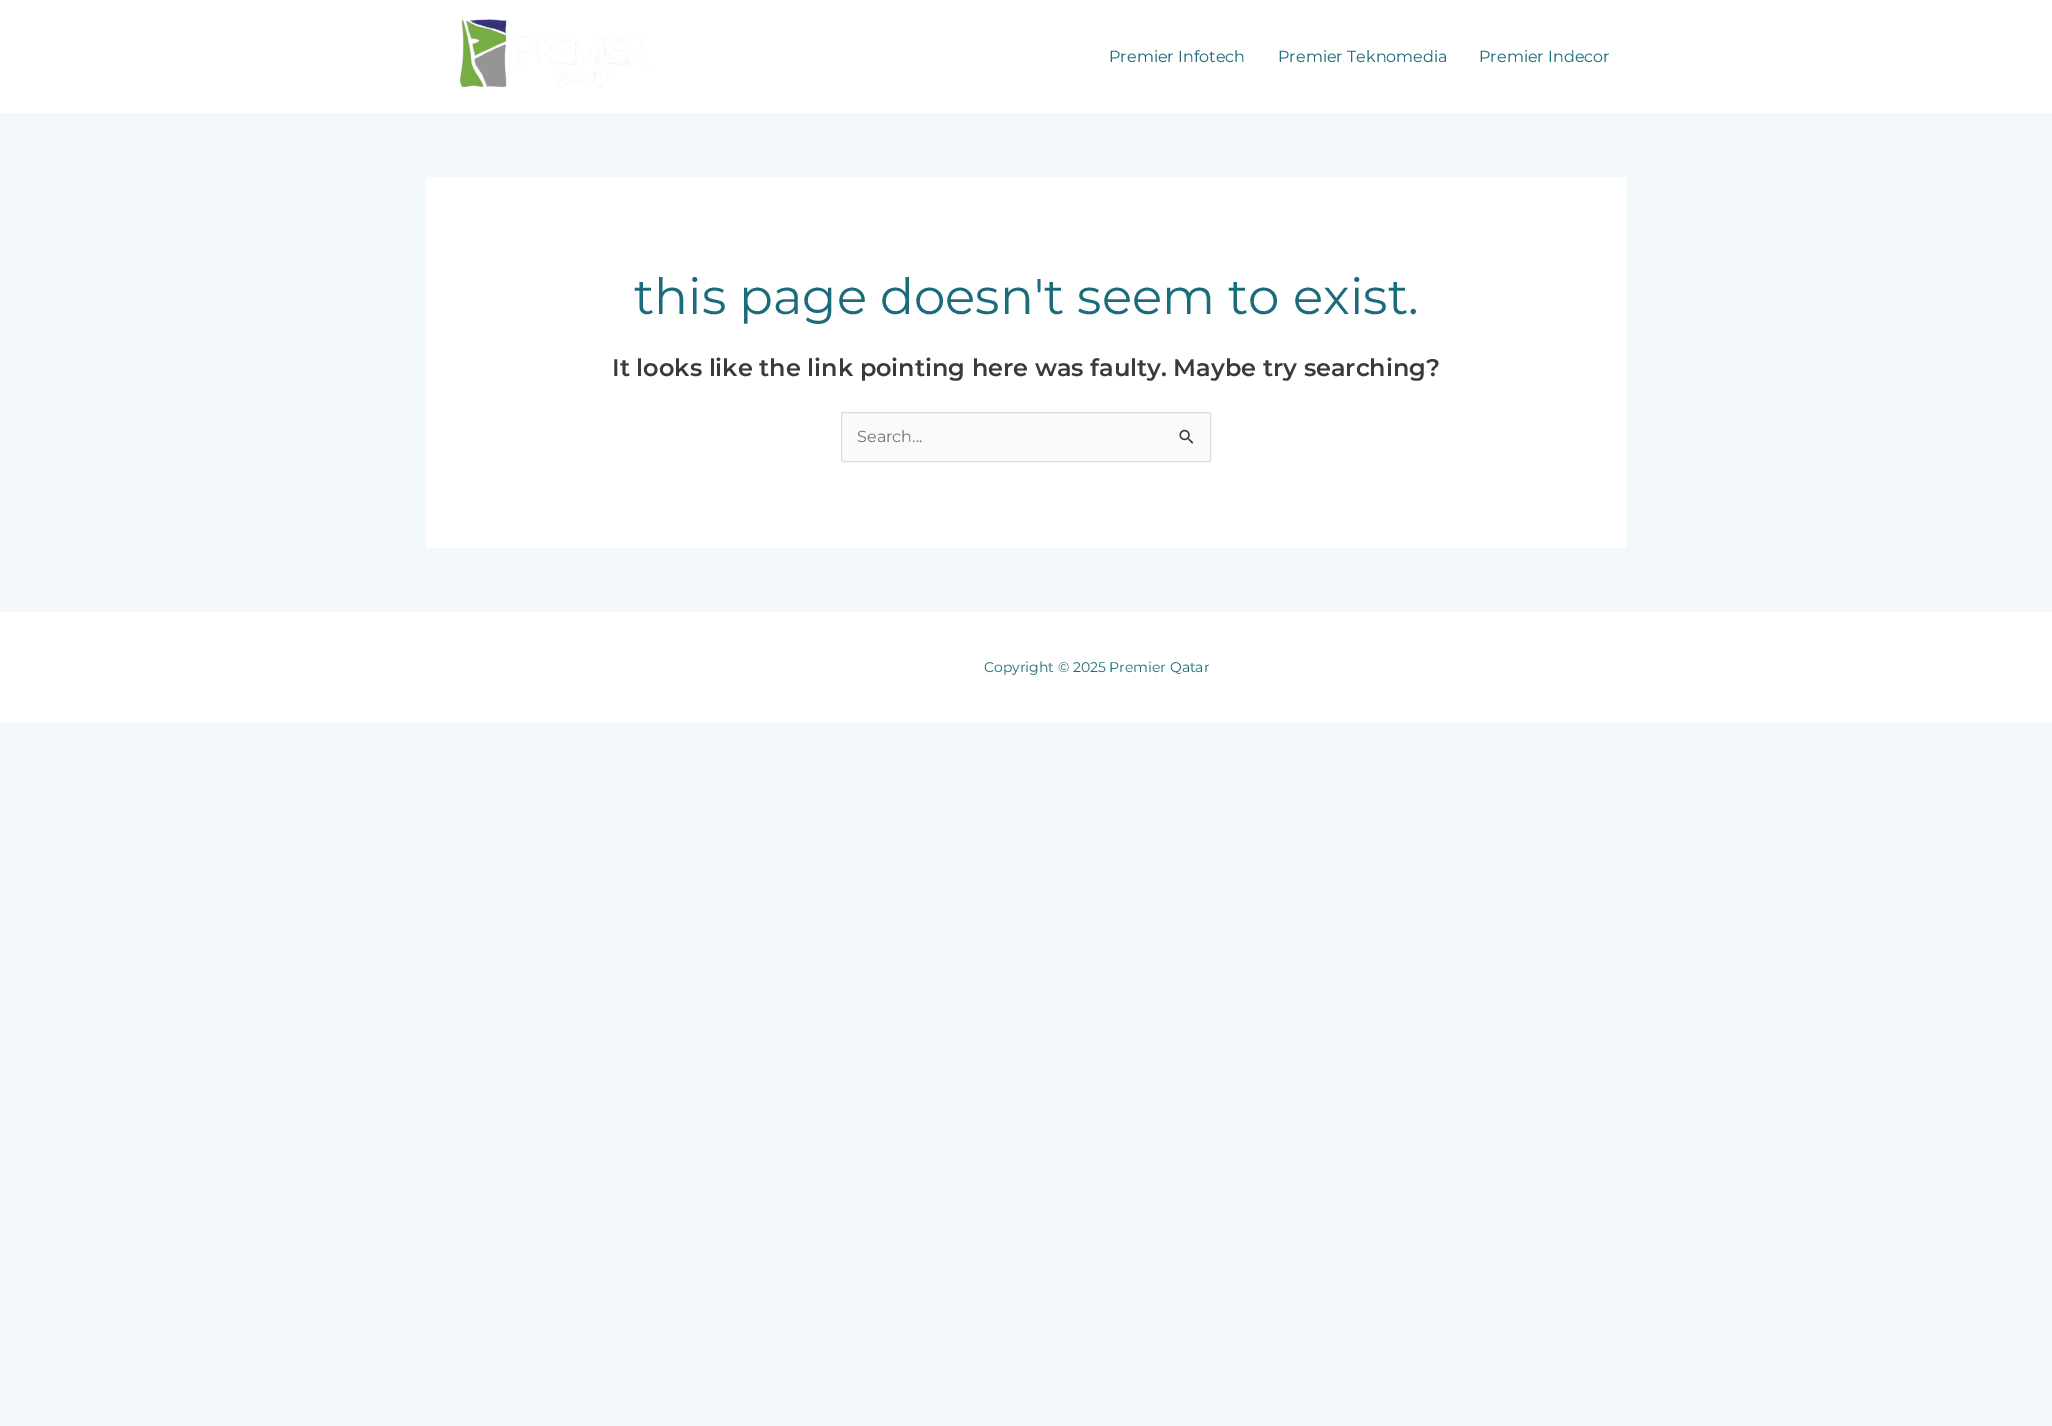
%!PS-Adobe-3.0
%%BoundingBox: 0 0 2052 1426
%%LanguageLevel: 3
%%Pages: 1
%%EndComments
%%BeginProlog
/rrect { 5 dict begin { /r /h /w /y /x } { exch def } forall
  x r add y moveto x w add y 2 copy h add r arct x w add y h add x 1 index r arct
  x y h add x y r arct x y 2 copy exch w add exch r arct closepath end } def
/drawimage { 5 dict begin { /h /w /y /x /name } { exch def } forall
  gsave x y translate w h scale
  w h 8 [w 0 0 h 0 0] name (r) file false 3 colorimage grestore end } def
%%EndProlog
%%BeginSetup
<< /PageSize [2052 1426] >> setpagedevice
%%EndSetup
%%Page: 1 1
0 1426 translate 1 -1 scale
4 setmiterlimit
0.953 0.976 0.984 setrgbcolor
0 0 2052 1426 rectfill
1 setgray
0 0 2052 113 rectfill
(images/1.raw) 459 19 192 69 drawimage
426 177 1200 371 rectfill
0.98 setgray
841.5 412.5 369 49 1.5 rrect gsave fill grestore
0.867 setgray
stroke
(images/2.raw) 1179 429 15 15 drawimage
1 setgray
0 612 2052 110 rectfill
/Montserrat-Regular [16 0 0 -16 0 0] selectfont
0.102 0.424 0.478 setrgbcolor
1109 62 moveto (Premier Infotech) show
1278 62 moveto (Premier Teknomedia) show
1479 62 moveto (Premier Indecor) show
/Montserrat-Regular [50 0 0 -50 0 0] selectfont
634 314 moveto (this page doesn't seem to exist.) show
/Montserrat-SemiBold [24 0 0 -24 0 0] selectfont
0.227 setgray
612 376 moveto (It looks like the link pointing here was faulty. Maybe try searching?) show
/Montserrat-Regular [16 0 0 -16 0 0] selectfont
0.459 setgray
857 442 moveto (Search...) show
/Montserrat-Regular [14 0 0 -14 0 0] selectfont
0.102 0.424 0.478 setrgbcolor
984 672 moveto (Copyright © 2025 Premier Qatar) show
showpage
%%EOF
